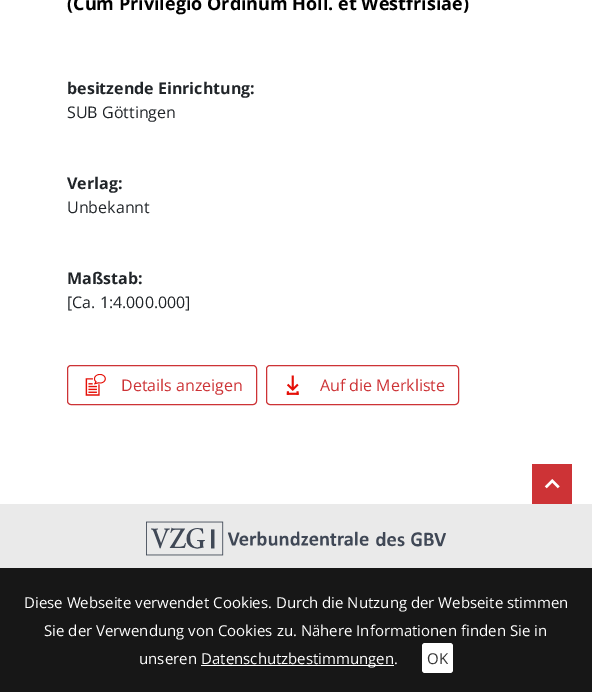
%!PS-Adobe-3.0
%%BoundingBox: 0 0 592 692
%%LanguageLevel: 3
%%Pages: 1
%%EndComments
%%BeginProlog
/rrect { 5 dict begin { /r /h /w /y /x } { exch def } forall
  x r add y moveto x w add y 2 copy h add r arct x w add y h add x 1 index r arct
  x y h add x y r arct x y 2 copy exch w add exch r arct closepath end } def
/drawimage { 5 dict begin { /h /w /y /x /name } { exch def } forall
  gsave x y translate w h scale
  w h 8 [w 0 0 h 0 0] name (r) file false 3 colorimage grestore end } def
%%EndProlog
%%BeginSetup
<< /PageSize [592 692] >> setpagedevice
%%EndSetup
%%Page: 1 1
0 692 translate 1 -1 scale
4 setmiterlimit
1 setgray
0 0 592 692 rectfill
0.804 0.2 0.212 setrgbcolor
67.5 365.5 189 39 3.5 rrect stroke
(images/1.raw) 85 374 21 22 drawimage
266.5 365.5 192 39 3.5 rrect stroke
(images/2.raw) 286 375 13 20 drawimage
532 464 40 40 rectfill
(images/3.raw) 544 479 16 10 drawimage
0.09 setgray
0 568 592 124 rectfill
1 setgray
201 665 193 1 rectfill
422 643 31 30 3 rrect fill
0.918 setgray
0 504 592 64 rectfill
(images/4.raw) 146 521 300 35 drawimage
/OpenSans-Bold [18 0 0 -18 0 0] selectfont
0 setgray
67 10 moveto (\(Cum Privilegio Ordinum Holl. et Westfrisiae\)) show
/OpenSans-Bold [16 0 0 -16 0 0] selectfont
0.129 0.145 0.161 setrgbcolor
67 94 moveto (besitzende Einrichtung:) show
/OpenSans-Regular [16 0 0 -16 0 0] selectfont
67 118 moveto (SUB Göttingen) show
/OpenSans-Bold [16 0 0 -16 0 0] selectfont
67 189 moveto (Verlag:) show
/OpenSans-Regular [16 0 0 -16 0 0] selectfont
67 213 moveto (Unbekannt) show
/OpenSans-Bold [16 0 0 -16 0 0] selectfont
67 284 moveto (Maßstab:) show
/OpenSans-Regular [16 0 0 -16 0 0] selectfont
67 308 moveto ([Ca. 1:4.000.000]) show
0.804 0.2 0.212 setrgbcolor
121 391 moveto (Details anzeigen) show
320 391 moveto (Auf die Merkliste) show
/OpenSans-Regular [15 0 0 -15 0 0] selectfont
1 setgray
24 608 moveto (Diese Webseite verwendet Cookies. Durch die Nutzung der Webseite stimmen) show
44 636 moveto (Sie der Verwendung von Cookies zu. Nähere Informationen finden Sie in) show
139 664 moveto (unseren) show
201 664 moveto (Datenschutzbestimmungen.) show
0.2 setgray
427 664 moveto (OK) show
showpage
%%EOF
